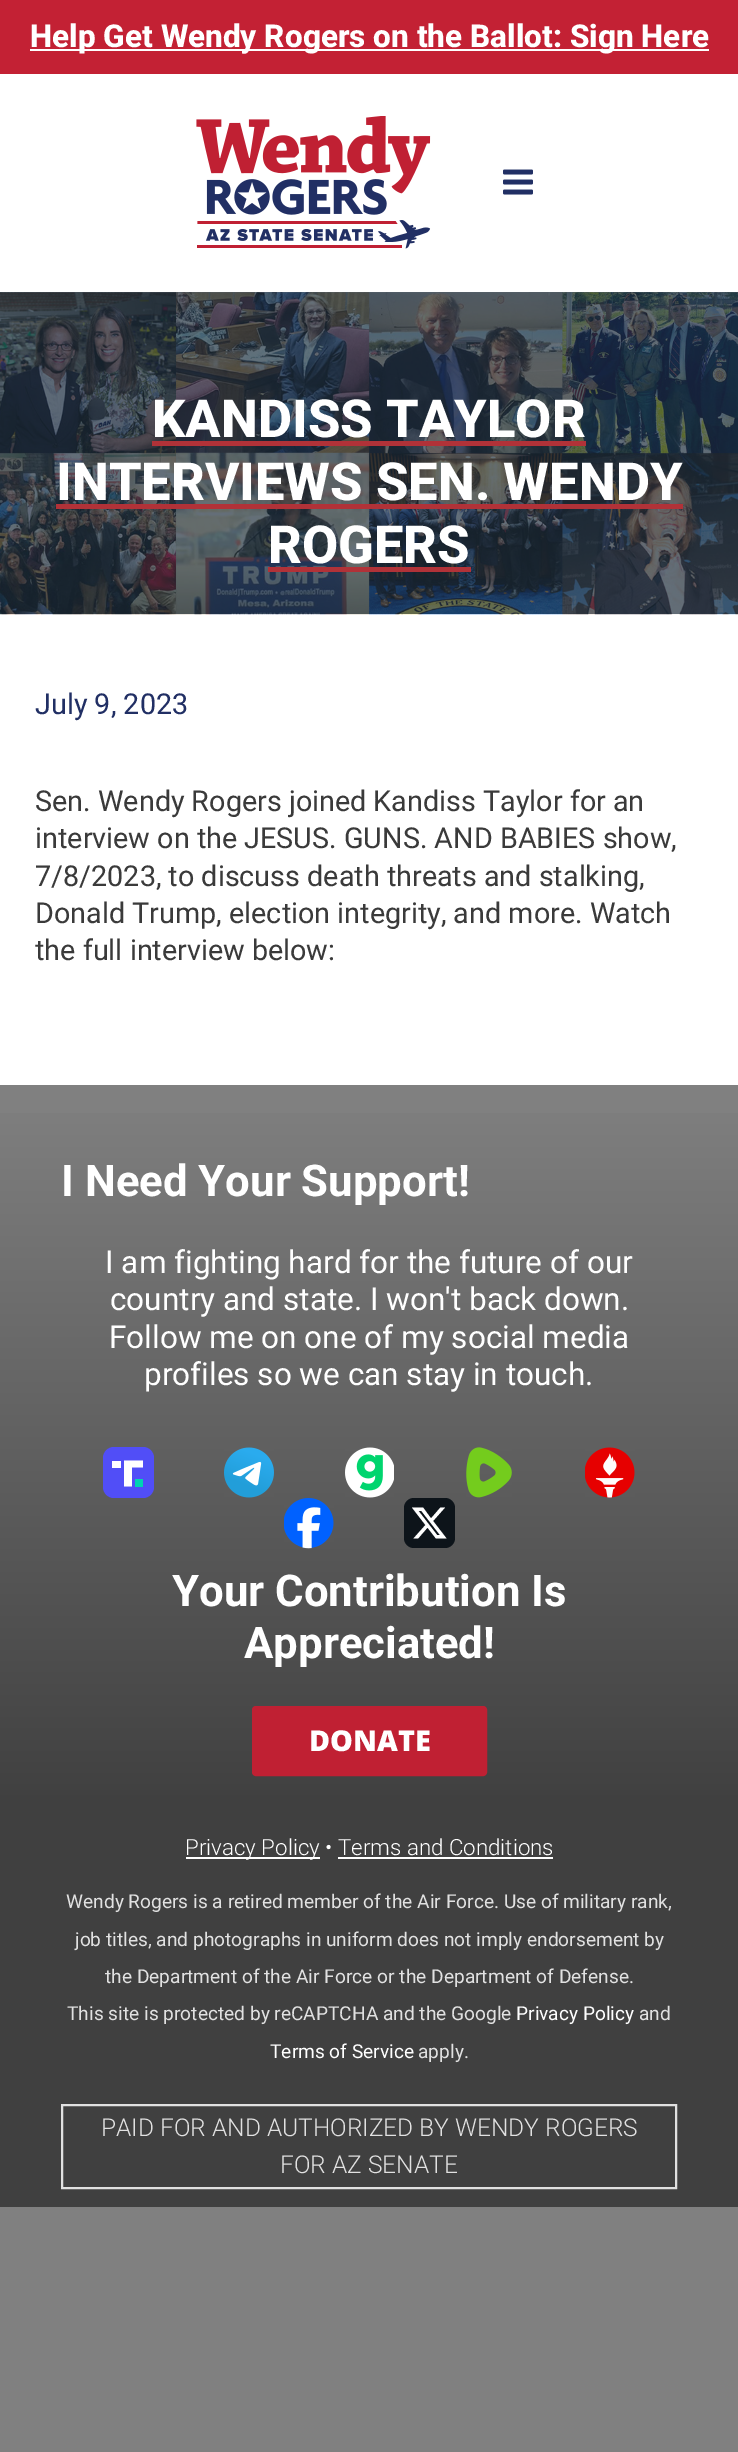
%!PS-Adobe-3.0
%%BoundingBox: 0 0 738 2452
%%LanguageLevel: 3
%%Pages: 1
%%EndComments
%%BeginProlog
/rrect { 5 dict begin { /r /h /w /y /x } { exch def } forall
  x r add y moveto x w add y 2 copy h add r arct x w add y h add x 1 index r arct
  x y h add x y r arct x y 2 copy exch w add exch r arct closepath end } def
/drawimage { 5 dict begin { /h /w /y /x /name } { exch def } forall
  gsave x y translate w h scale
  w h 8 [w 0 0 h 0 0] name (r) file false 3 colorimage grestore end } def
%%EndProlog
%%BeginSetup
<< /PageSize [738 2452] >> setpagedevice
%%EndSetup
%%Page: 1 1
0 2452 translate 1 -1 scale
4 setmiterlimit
0.502 setgray
0 0 738 2452 rectfill
0.765 0.129 0.204 setrgbcolor
0 0 738 74 rectfill
1 setgray
30 49 679 2 rectfill
0 74 738 218 rectfill
(images/1.raw) 196 116 235 133 drawimage
(images/2.raw) 503 169 30 26 drawimage
0 614 738 471 rectfill
(images/3.raw) 0 292 738 323 drawimage
0.694 0.196 0.22 setrgbcolor
152 441 434 5 rectfill
56 504 627 5 rectfill
268 567 203 5 rectfill
gsave newpath 0 1113 moveto 738 1113 lineto 738 1829 lineto 0 1829 lineto closepath clip newpath
<< /ShadingType 2 /ColorSpace /DeviceRGB /Coords [369 1085 369 1829] /Extend [true true] /Function << /FunctionType 3 /Domain [0 1] /Functions [<< /FunctionType 2 /Domain [0 1] /C0 [0.502 0.502 0.502] /C1 [0.251 0.251 0.251] /N 1 >> << /FunctionType 2 /Domain [0 1] /C0 [0.251 0.251 0.251] /C1 [0.251 0.251 0.251] /N 1 >>] /Bounds [0.97] /Encode [0 1 0 1] >> >> shfill grestore
0.318 0.306 0.969 setrgbcolor
103 1447 51 51 11 rrect fill
1 setgray
112 1461 9 7 rectfill
0 0.831 0.698 setrgbcolor
135 1479 8 8 rectfill
1 setgray
newpath 143 1460.5 moveto 124 1460.5 lineto 124 1486.5 lineto 132 1486.5 lineto 132 1467.5 lineto 143 1467.5 lineto closepath fill
(images/4.raw) 224 1447 50 51 drawimage
(images/5.raw) 345 1447 49 51 drawimage
(images/6.raw) 466 1447 46 51 drawimage
(images/7.raw) 585 1447 50 51 drawimage
(images/8.raw) 284 1498 50 51 drawimage
0.051 0.078 0.102 setrgbcolor
404 1498 51 50 10 rrect fill
1 setgray
newpath 446.5 1538.5 moveto 433 1521 lineto 445 1507.5 lineto 440.5 1507.5 lineto 431 1518.5 lineto 423 1507.5 lineto 412 1507.5 lineto 425.5 1525 lineto 413.5 1538.5 lineto 418 1538.5 lineto 427.5 1527.5 lineto 436 1538.5 lineto closepath 421.5 1511 moveto 440 1535 lineto 437 1535 lineto 418.5 1511 lineto closepath fill
0.753 0.125 0.2 setrgbcolor
254 1708 231 66 2 rrect gsave fill grestore
4 setlinewidth
stroke
0.251 setgray
0 1829 738 378 rectfill
1 setgray
186 1857 134 2 rectfill
338 1857 215 2 rectfill
0.882 setgray
2 setlinewidth
62 2105 614 83 rectstroke
/Roboto-ExtraBold [31.5 0 0 -31.5 0 0] selectfont
1 setgray
30 47 moveto (Help Get Wendy Rogers on the Ballot: Sign Here) show
/Roboto-ExtraBold [52.5 0 0 -52.5 0 0] selectfont
152 437 moveto (KANDISS TAYLOR) show
56 500 moveto (INTERVIEWS SEN. WENDY) show
268 563 moveto (ROGERS) show
/Roboto-Regular [28.75 0 0 -28.75 0 0] selectfont
0.129 0.184 0.392 setrgbcolor
35 714 moveto (July 9, 2023) show
0.227 setgray
35 811 moveto (Sen. Wendy Rogers joined Kandiss Taylor for an) show
35 848 moveto (interview on the JESUS. GUNS. AND BABIES show,) show
35 886 moveto (7/8/2023, to discuss death threats and stalking,) show
35 923 moveto (Donald Trump, election integrity, and more. Watch) show
35 960 moveto (the full interview below:) show
/Roboto-Bold [43.75 0 0 -43.75 0 0] selectfont
1 setgray
61 1196 moveto (I Need Your Support!) show
/Roboto-Regular [31.5 0 0 -31.5 0 0] selectfont
105 1273 moveto (I am fighting hard for the future of our) show
110 1310 moveto (country and state. I won't back down.) show
109 1348 moveto (Follow me on one of my social media) show
144 1385 moveto (profiles so we can stay in touch.) show
/Roboto-Bold [43.75 0 0 -43.75 0 0] selectfont
172 1606 moveto (Your Contribution Is) show
244 1658 moveto (Appreciated!) show
/OpenSans-ExtraBold [28.75 0 0 -28.75 0 0] selectfont
309 1751 moveto (DONATE) show
/Roboto-Light [22.3 0 0 -22.3 0 0] selectfont
185 1855 moveto (Privacy Policy • Terms and Conditions) show
/Roboto-Regular [19.15 0 0 -19.15 0 0] selectfont
0.882 setgray
66 1908 moveto (Wendy Rogers is a retired member of the Air Force. Use of military rank,) show
75 1946 moveto (job titles, and photographs in uniform does not imply endorsement by) show
105 1983 moveto (the Department of the Air Force or the Department of Defense.) show
67 2020 moveto (This site is protected by reCAPTCHA and the Google) show
1 setgray
516 2020 moveto (Privacy Policy) show
0.882 setgray
639 2020 moveto (and) show
1 setgray
270 2058 moveto (Terms of Service) show
0.882 setgray
418 2058 moveto (apply.) show
/Roboto-Light [24.5 0 0 -24.5 0 0] selectfont
101 2136 moveto (PAID FOR AND AUTHORIZED BY WENDY ROGERS) show
280 2173 moveto (FOR AZ SENATE) show
showpage
%%EOF
